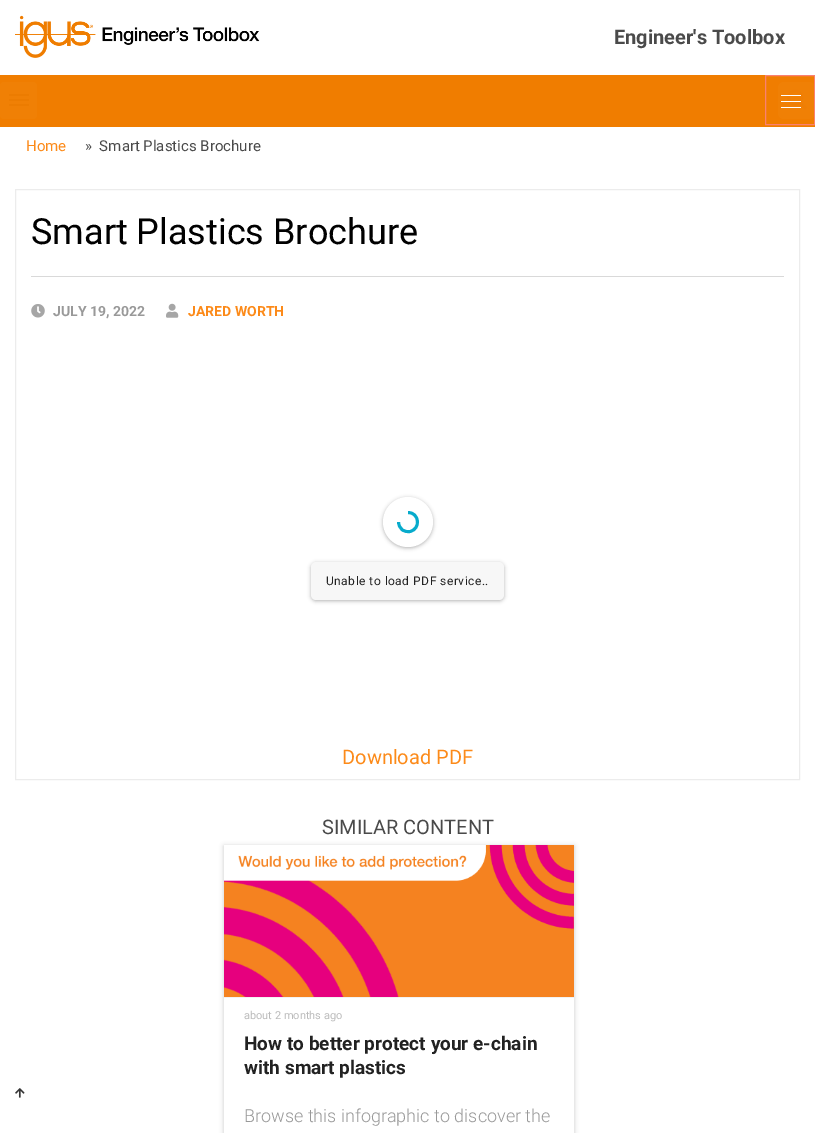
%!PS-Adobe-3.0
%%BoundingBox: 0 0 815 1133
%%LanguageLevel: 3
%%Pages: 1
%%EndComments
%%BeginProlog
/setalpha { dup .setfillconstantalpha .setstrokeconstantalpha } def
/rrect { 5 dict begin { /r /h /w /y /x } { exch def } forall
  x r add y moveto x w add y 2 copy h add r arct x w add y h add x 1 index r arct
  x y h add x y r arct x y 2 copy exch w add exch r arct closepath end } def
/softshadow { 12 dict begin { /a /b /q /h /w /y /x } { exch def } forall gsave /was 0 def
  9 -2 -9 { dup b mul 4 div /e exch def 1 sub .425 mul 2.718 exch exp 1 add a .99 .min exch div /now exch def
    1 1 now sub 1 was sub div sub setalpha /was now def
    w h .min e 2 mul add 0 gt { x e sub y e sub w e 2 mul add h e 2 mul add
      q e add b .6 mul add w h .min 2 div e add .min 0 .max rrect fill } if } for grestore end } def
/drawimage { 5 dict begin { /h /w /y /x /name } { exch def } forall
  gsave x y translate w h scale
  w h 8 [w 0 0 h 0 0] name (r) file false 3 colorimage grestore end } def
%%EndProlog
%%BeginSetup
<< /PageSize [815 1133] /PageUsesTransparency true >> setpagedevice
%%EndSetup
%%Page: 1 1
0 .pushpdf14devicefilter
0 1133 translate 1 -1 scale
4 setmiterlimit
1 setgray
0 0 815 1133 rectfill
(images/1.raw) 15 15 245 43 drawimage
0.941 0.49 0 setrgbcolor
0 125 815 2 rectfill
0 75 814 50 rectfill
0.941 0.502 0.02 setrgbcolor
0 82 37 37 4 rrect fill
0.925 0.486 0.004 setrgbcolor
9 94 20 2 rectfill
9 99 20 2 rectfill
9 104 20 2 rectfill
0.941 0.502 0.02 setrgbcolor
778 82 37 37 6 rrect fill
(images/2.raw) 787 89 20 21 drawimage
0.98 0.502 0.447 setrgbcolor
765.5 75.5 49 49 rectstroke
1 setgray
781 95 20 1 0.5 rrect fill
781 101 20 1 0.5 rrect fill
781 107 20 1 0.5 rrect fill
(images/3.raw) 15 1088 10 10 drawimage
0.925 setgray
15.5 189.5 784 590 rectstroke
0.851 setgray
31 276 753 1 rectfill
(images/4.raw) 31 304 14 14 drawimage
(images/5.raw) 166 303 13 15 drawimage
0 setgray
383 498 50 50 25 2 0.3 softshadow
1 setgray
newpath 408 522 25 0 360 arc closepath fill
0.027 0.671 0.8 setrgbcolor
2.9 setlinewidth
newpath 408 512.5 moveto 419.5 512.5 421 529 410 531.5 curveto 407.5 532 405 531.5 402.5 530 curveto 400 528 398.5 525 398.5 522 curveto stroke
0 setgray
311 563 193 38 5 2 0.3 softshadow
0.969 setgray
311 562 193 38 5 rrect fill
gsave
newpath 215 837 moveto 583 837 lineto 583 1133 lineto 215 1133 lineto closepath 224 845 moveto 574 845 lineto 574 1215 lineto 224 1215 lineto closepath eoclip newpath
0 setgray
224 846 350 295 0 2.5 0.2 softshadow
grestore
(images/6.raw) 224 845 350 152 drawimage
0.949 setgray
224 997 350 1 rectfill
/Roboto-Bold [20 0 0 -20 0 0] selectfont
0.29 setgray
614 44 moveto (Engineer's Toolbox) show
/Roboto-Regular [15 0 0 -15 0 0] selectfont
0.988 0.541 0.098 setrgbcolor
26 151 moveto (Home) show
0.29 setgray
85 151 moveto (»  Smart Plastics Brochure) show
/Roboto-Regular [36 0 0 -36 0 0] selectfont
0 setgray
31 244 moveto (Smart Plastics Brochure) show
/Roboto-Bold [14 0 0 -14 0 0] selectfont
0.6 setgray
53 316 moveto (JULY 19, 2022) show
0.988 0.541 0.098 setrgbcolor
188 316 moveto (JARED WORTH) show
/Roboto-Regular [12 0 0 -12 0 0] selectfont
0.133 setgray
326 585 moveto 0.5 0 (Unable to load PDF service..) ashow
/Roboto-Regular [20 0 0 -20 0 0] selectfont
0.988 0.541 0.098 setrgbcolor
342 764 moveto (Download PDF) show
0.29 setgray
322 834 moveto (SIMILAR CONTENT) show
/Roboto-Regular [11 0 0 -11 0 0] selectfont
0.733 setgray
244 1019 moveto (about 2 months ago) show
/Roboto-Bold [19 0 0 -19 0 0] selectfont
0.133 setgray
244 1050 moveto (How to better protect your e-chain) show
244 1074 moveto (with smart plastics) show
/Roboto-Light [18 0 0 -18 0 0] selectfont
0.6 setgray
244 1122 moveto (Browse this infographic to discover the) show
.poppdf14devicefilter showpage
%%EOF
